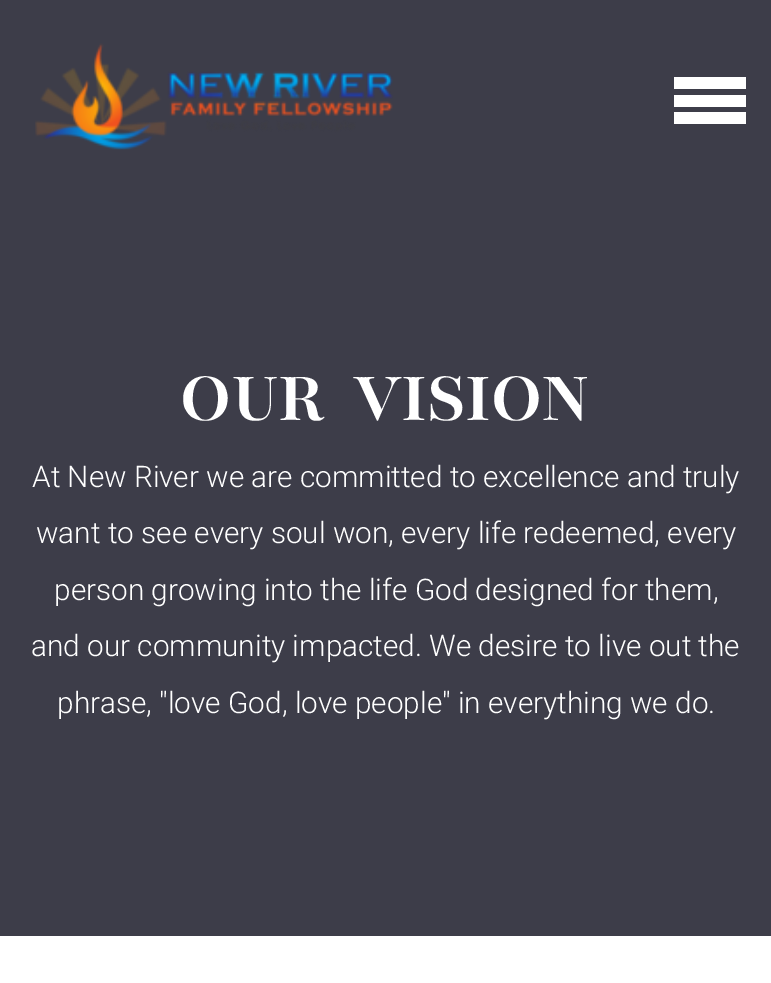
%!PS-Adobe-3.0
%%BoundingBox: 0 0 771 983
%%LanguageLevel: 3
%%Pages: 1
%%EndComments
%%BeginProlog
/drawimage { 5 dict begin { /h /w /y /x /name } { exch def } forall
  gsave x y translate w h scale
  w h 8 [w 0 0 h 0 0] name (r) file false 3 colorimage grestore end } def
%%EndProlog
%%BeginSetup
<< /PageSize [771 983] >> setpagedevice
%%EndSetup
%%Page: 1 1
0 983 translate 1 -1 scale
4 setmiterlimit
1 setgray
0 0 771 983 rectfill
0.239 0.239 0.286 setrgbcolor
0 0 771 936 rectfill
(images/1.raw) 35 43 358 107 drawimage
1 setgray
674 77 72 12 rectfill
674 95 72 12 rectfill
674 112 72 12 rectfill
/Playfair-Bold [75.5 0 0 -75.5 0 0] selectfont
180 420 moveto 15 0 32 (OUR VISION) widthshow
/Roboto-Light [29.75 0 0 -29.75 0 0] selectfont
32 487 moveto (At New River we are committed to excellence and truly) show
36 543 moveto (want to see every soul won, every life redeemed, every) show
54 600 moveto (person growing into the life God designed for them,) show
31 656 moveto (and our community impacted. We desire to live out the) show
57 713 moveto (phrase, "love God, love people" in everything we do.) show
showpage
%%EOF
